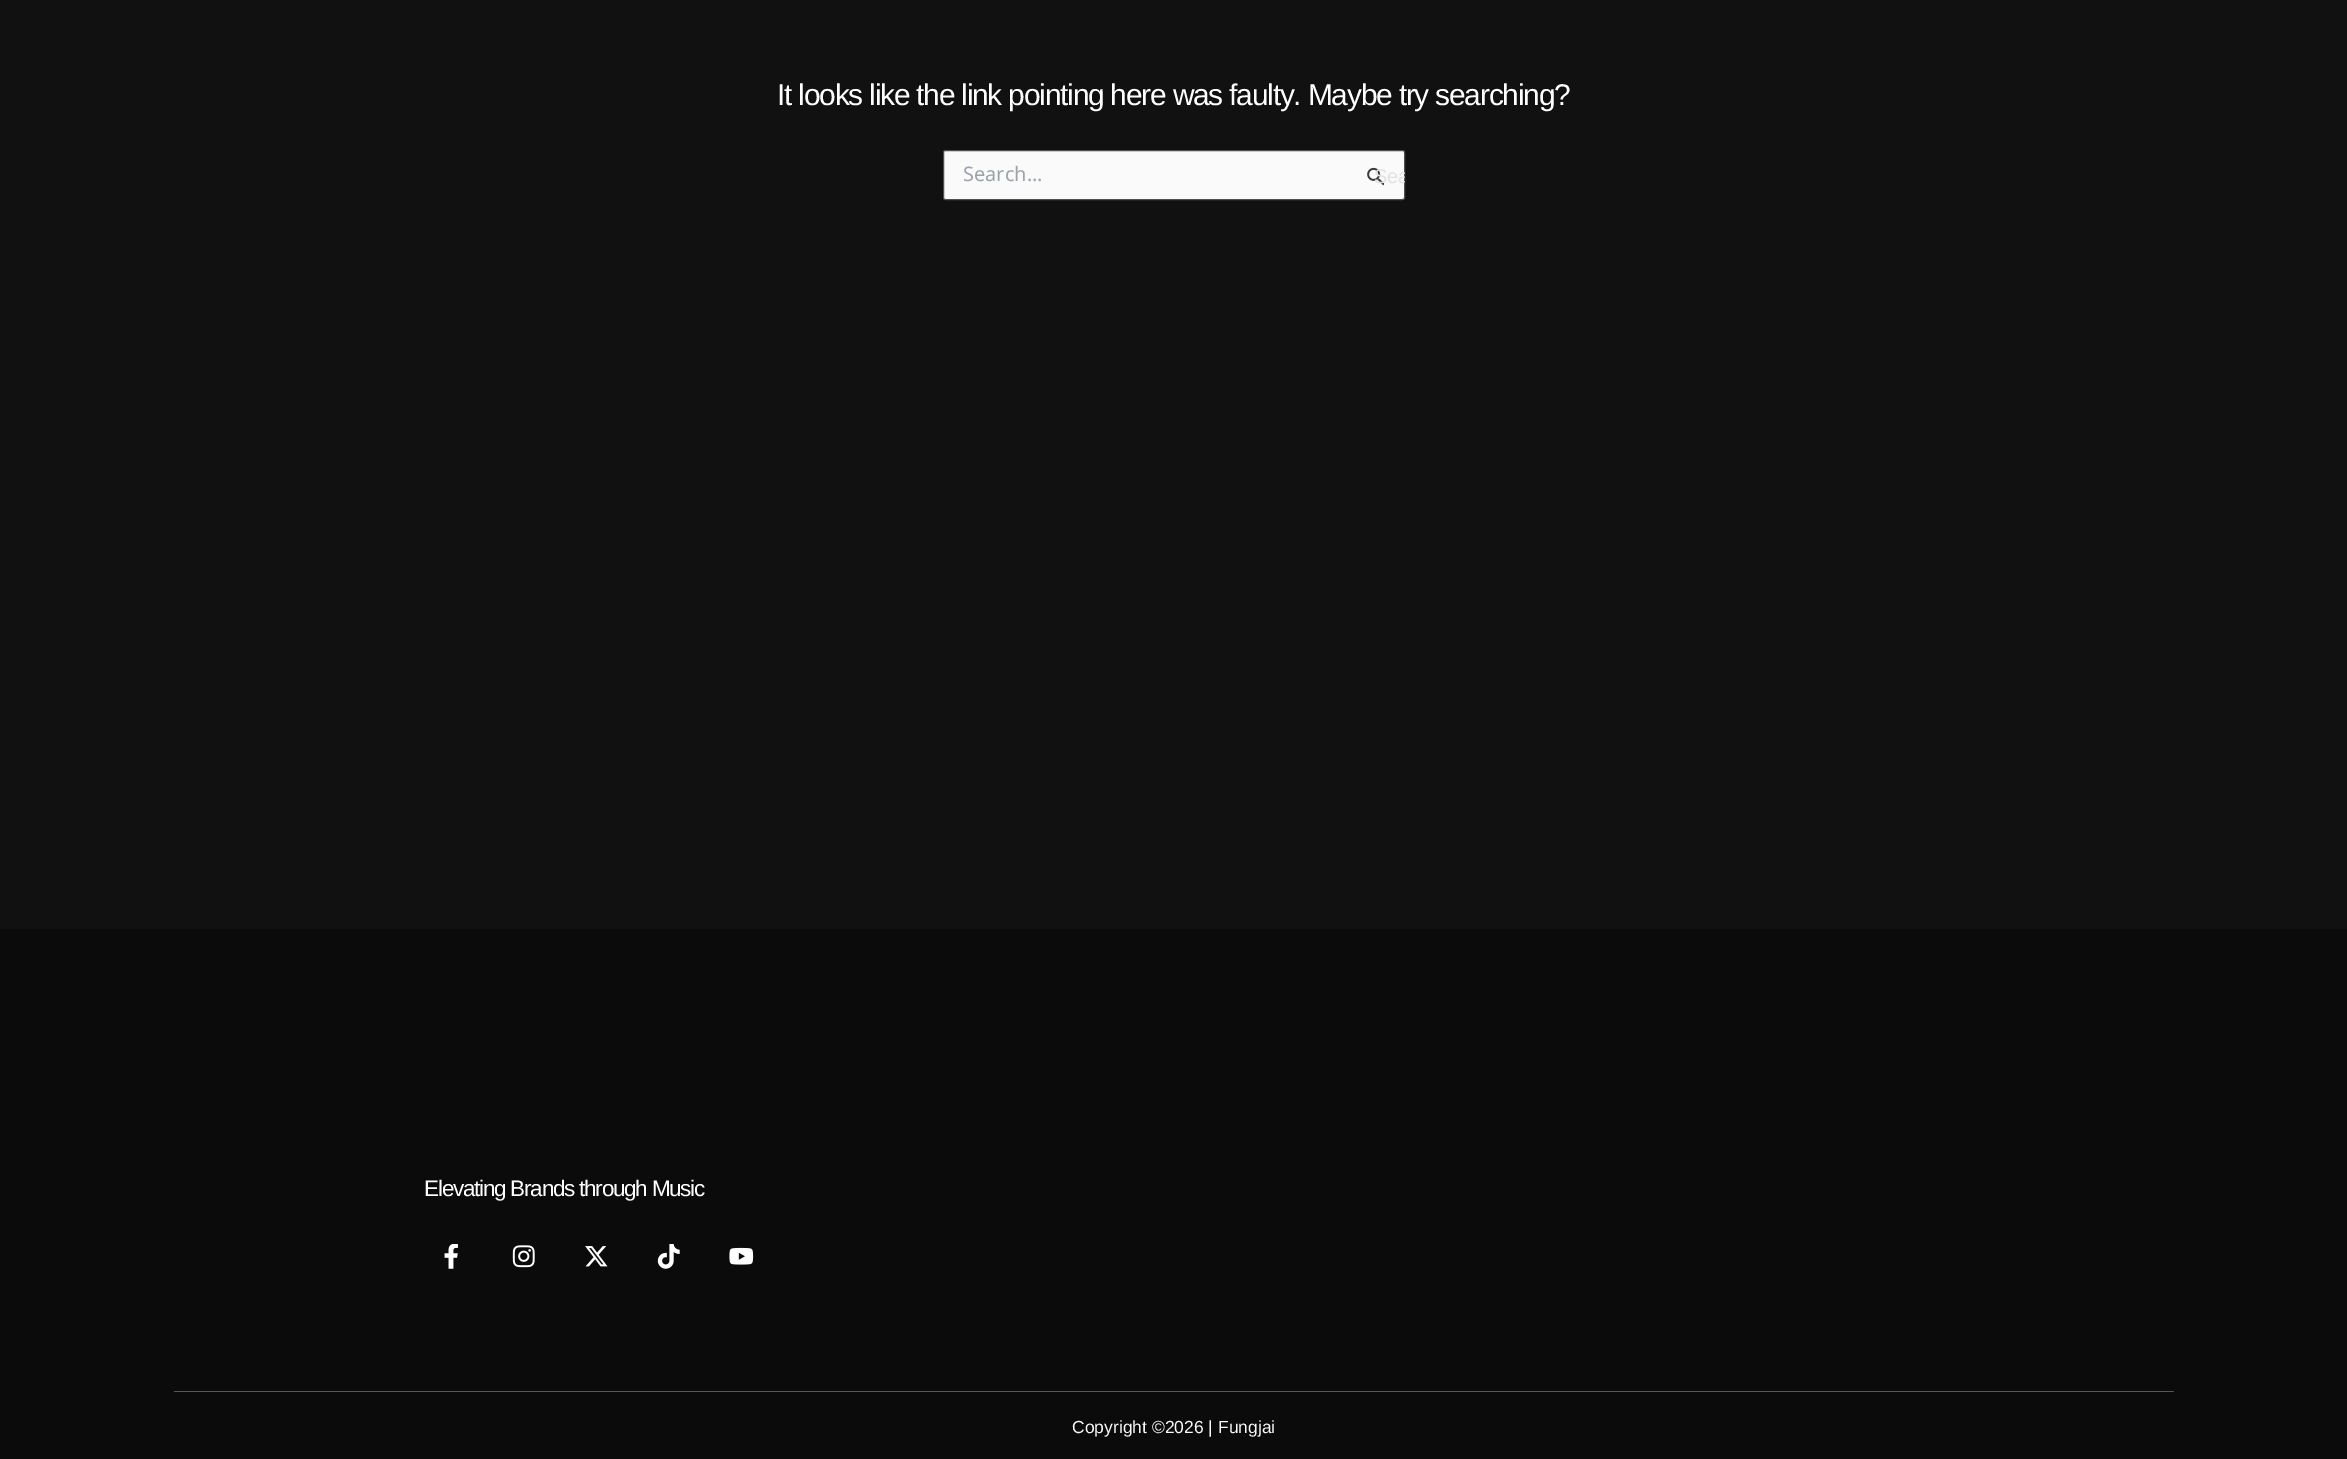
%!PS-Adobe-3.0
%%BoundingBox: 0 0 2347 1459
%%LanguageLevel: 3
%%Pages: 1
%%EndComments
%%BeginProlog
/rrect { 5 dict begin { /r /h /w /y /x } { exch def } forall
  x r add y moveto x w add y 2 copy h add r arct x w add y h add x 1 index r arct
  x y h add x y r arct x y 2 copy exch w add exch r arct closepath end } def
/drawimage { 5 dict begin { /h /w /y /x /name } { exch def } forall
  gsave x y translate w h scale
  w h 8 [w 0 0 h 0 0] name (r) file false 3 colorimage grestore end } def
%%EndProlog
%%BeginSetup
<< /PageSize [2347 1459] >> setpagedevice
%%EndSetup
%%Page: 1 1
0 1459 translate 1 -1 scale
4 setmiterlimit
0.067 setgray
0 0 2347 1459 rectfill
0.98 setgray
943.5 150.5 461 49 2 rrect gsave fill grestore
0.31 setgray
stroke
(images/1.raw) 1367 167 17 19 drawimage
0.043 setgray
0 929 2347 530 rectfill
(images/2.raw) 444 1244 14 25 drawimage
(images/3.raw) 512 1245 23 23 drawimage
(images/4.raw) 585 1246 23 21 drawimage
(images/5.raw) 657 1244 23 25 drawimage
(images/6.raw) 729 1247 25 18 drawimage
0.341 setgray
174 1391 2000 1 rectfill
/LiberationSans-Regular [30 0 0 -30 0 0] selectfont
1 setgray
777 105 moveto -1.25 0 (It looks like the link pointing here was faulty. Maybe try searching?) ashow
/NotoSansThai-Regular [20 0 0 -20 0 0] selectfont
0.612 0.639 0.686 setrgbcolor
963 181 moveto (Search...) show
gsave
1349 150 56 53 2.5 rrect clip newpath
/LiberationSans-Regular [20 0 0 -20 0 0] selectfont
0.886 setgray
1374 183 moveto (Sea) show
grestore
/LiberationSans-Regular [22.5 0 0 -22.5 0 0] selectfont
1 setgray
424 1196 moveto -1.25 0 (Elevating Brands through Music) ashow
/LiberationSans-Regular [17.5 0 0 -17.5 0 0] selectfont
0.973 setgray
1072 1433 moveto (Copyright ©2026 | Fungjai) show
showpage
%%EOF
